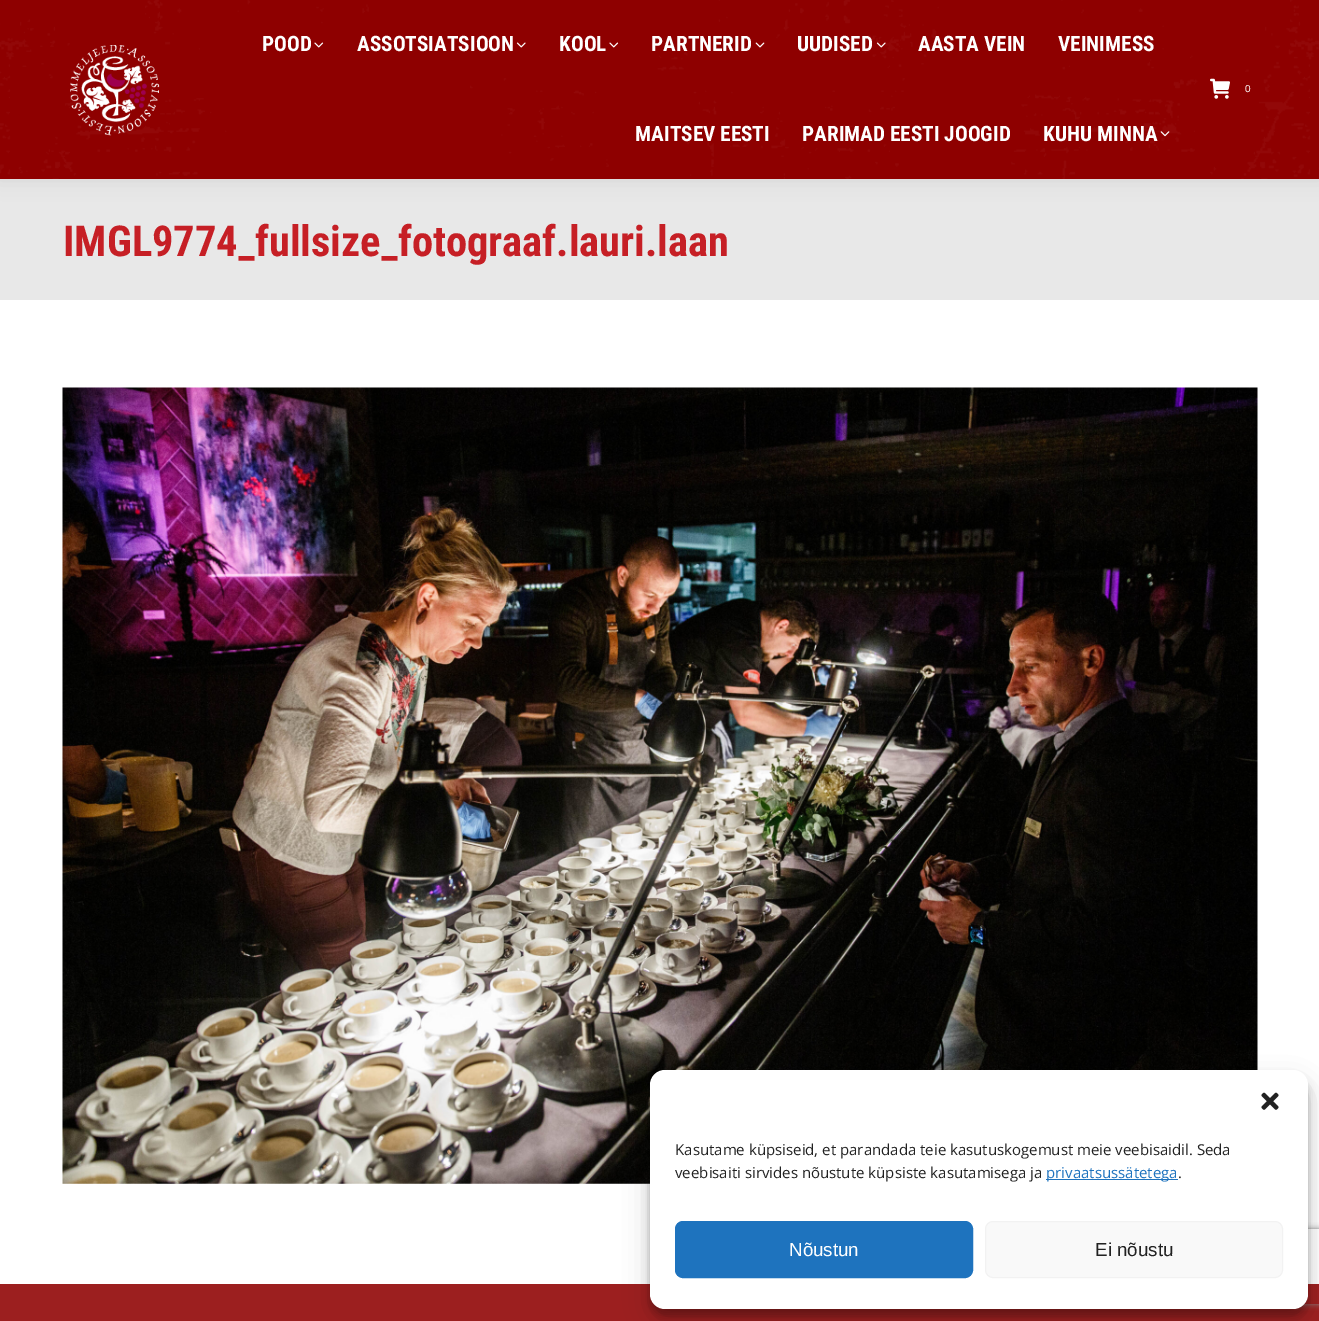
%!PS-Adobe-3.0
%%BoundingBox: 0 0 1319 1321
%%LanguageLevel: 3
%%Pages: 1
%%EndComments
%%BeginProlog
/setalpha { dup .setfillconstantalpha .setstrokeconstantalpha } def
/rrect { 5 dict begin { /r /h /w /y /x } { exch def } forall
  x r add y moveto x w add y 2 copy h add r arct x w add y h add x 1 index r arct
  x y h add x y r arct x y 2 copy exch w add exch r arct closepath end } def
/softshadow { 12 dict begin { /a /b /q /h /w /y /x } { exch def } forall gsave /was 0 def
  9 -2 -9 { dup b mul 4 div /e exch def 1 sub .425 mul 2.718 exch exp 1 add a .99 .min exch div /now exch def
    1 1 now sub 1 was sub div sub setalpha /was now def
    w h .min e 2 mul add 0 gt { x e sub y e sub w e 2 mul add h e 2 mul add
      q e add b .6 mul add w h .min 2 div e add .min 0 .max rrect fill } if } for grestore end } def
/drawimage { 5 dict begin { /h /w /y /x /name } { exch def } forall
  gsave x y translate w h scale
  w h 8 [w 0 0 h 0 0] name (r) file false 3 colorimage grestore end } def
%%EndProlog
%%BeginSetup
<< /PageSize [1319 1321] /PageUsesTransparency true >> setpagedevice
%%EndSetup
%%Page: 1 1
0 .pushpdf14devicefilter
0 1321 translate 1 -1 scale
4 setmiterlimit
1 setgray
0 0 1319 1321 rectfill
0.91 setgray
0 179 1319 121 rectfill
0 setgray
-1 -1 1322 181 0 9.5 0.07 softshadow
0.557 0 0 setrgbcolor
0 0 1319 179 rectfill
(images/1.raw) 0 0 1319 179 drawimage
(images/2.raw) 70 45 90 91 drawimage
(images/3.raw) 314 42 10 6 drawimage
(images/4.raw) 516 42 10 6 drawimage
(images/3.raw) 609 42 10 6 drawimage
(images/5.raw) 755 42 10 6 drawimage
(images/6.raw) 876 42 10 6 drawimage
(images/7.raw) 1160 131 10 6 drawimage
(images/8.raw) 1210 78 20 21 drawimage
newpath 1248 89 10 0 360 arc closepath fill
(images/9.raw) 62 387 1196 797 drawimage
0 1284 1319 37 rectfill
gsave
newpath 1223 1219 moveto 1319 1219 lineto 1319 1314 lineto 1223 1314 lineto closepath 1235.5 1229 moveto 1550.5 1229 lineto 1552 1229 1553 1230 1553 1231.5 curveto 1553 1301.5 lineto 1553 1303 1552 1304 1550.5 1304 curveto 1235.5 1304 lineto 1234 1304 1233 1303 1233 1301.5 curveto 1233 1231.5 lineto 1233 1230 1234 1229 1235.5 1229 curveto closepath eoclip newpath
0.502 setgray
1233 1229 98 75 2.5 3 1 softshadow
grestore
0.12 setalpha
1 setgray
0 1284 1319 37 rectfill
1 setalpha
0 setgray
650 1078 658 238 15 4 0.23 softshadow
650 1083 658 238 15 12.5 0.19 softshadow
1 setgray
650 1070 658 239 15 rrect fill
(images/10.raw) 1261 1092 18 18 drawimage
0.118 0.451 0.745 setrgbcolor
1046 1179 132 1 rectfill
675.5 1221.5 297 56 7.5 rrect gsave fill grestore
stroke
0.976 setgray
985.5 1221.5 297 56 7.5 rrect gsave fill grestore
0.949 setgray
stroke
/RobotoCondensed-Bold [21.25 0 0 -21.25 0 0] selectfont
1 setgray
262 51 moveto (POOD) show
357 51 moveto (ASSOTSIATSIOON) show
559 51 moveto (KOOL) show
651 51 moveto (PARTNERID) show
797 51 moveto (UUDISED) show
918 51 moveto (AASTA VEIN) show
1058 51 moveto (VEINIMESS) show
635 141 moveto (MAITSEV EESTI) show
802 141 moveto (PARIMAD EESTI JOOGID) show
1043 141 moveto (KUHU MINNA) show
/LiberationSans-Regular [10 0 0 -10 0 0] selectfont
1245 92 moveto (0) show
/RobotoCondensed-Bold [42.5 0 0 -42.5 0 0] selectfont
0.776 0.122 0.145 setrgbcolor
63 256 moveto (IMGL9774_fullsize_fotograaf.lauri.laan) show
/OpenSans-Regular [15 0 0 -15 0 0] selectfont
0.133 setgray
675 1155 moveto (Kasutame küpsiseid, et parandada teie kasutuskogemust meie veebisaidil. Seda) show
675 1178 moveto (veebisaiti sirvides nõustute küpsiste kasutamisega ja) show
0.118 0.451 0.745 setrgbcolor
1046 1178 moveto (privaatsussätetega) show
0.133 setgray
1178 1178 moveto (.) show
/LiberationSans-Regular [18.75 0 0 -18.75 0 0] selectfont
1 setgray
789 1256 moveto (Nõustun) show
0.133 setgray
1095 1256 moveto (Ei nõustu) show
.poppdf14devicefilter showpage
%%EOF
